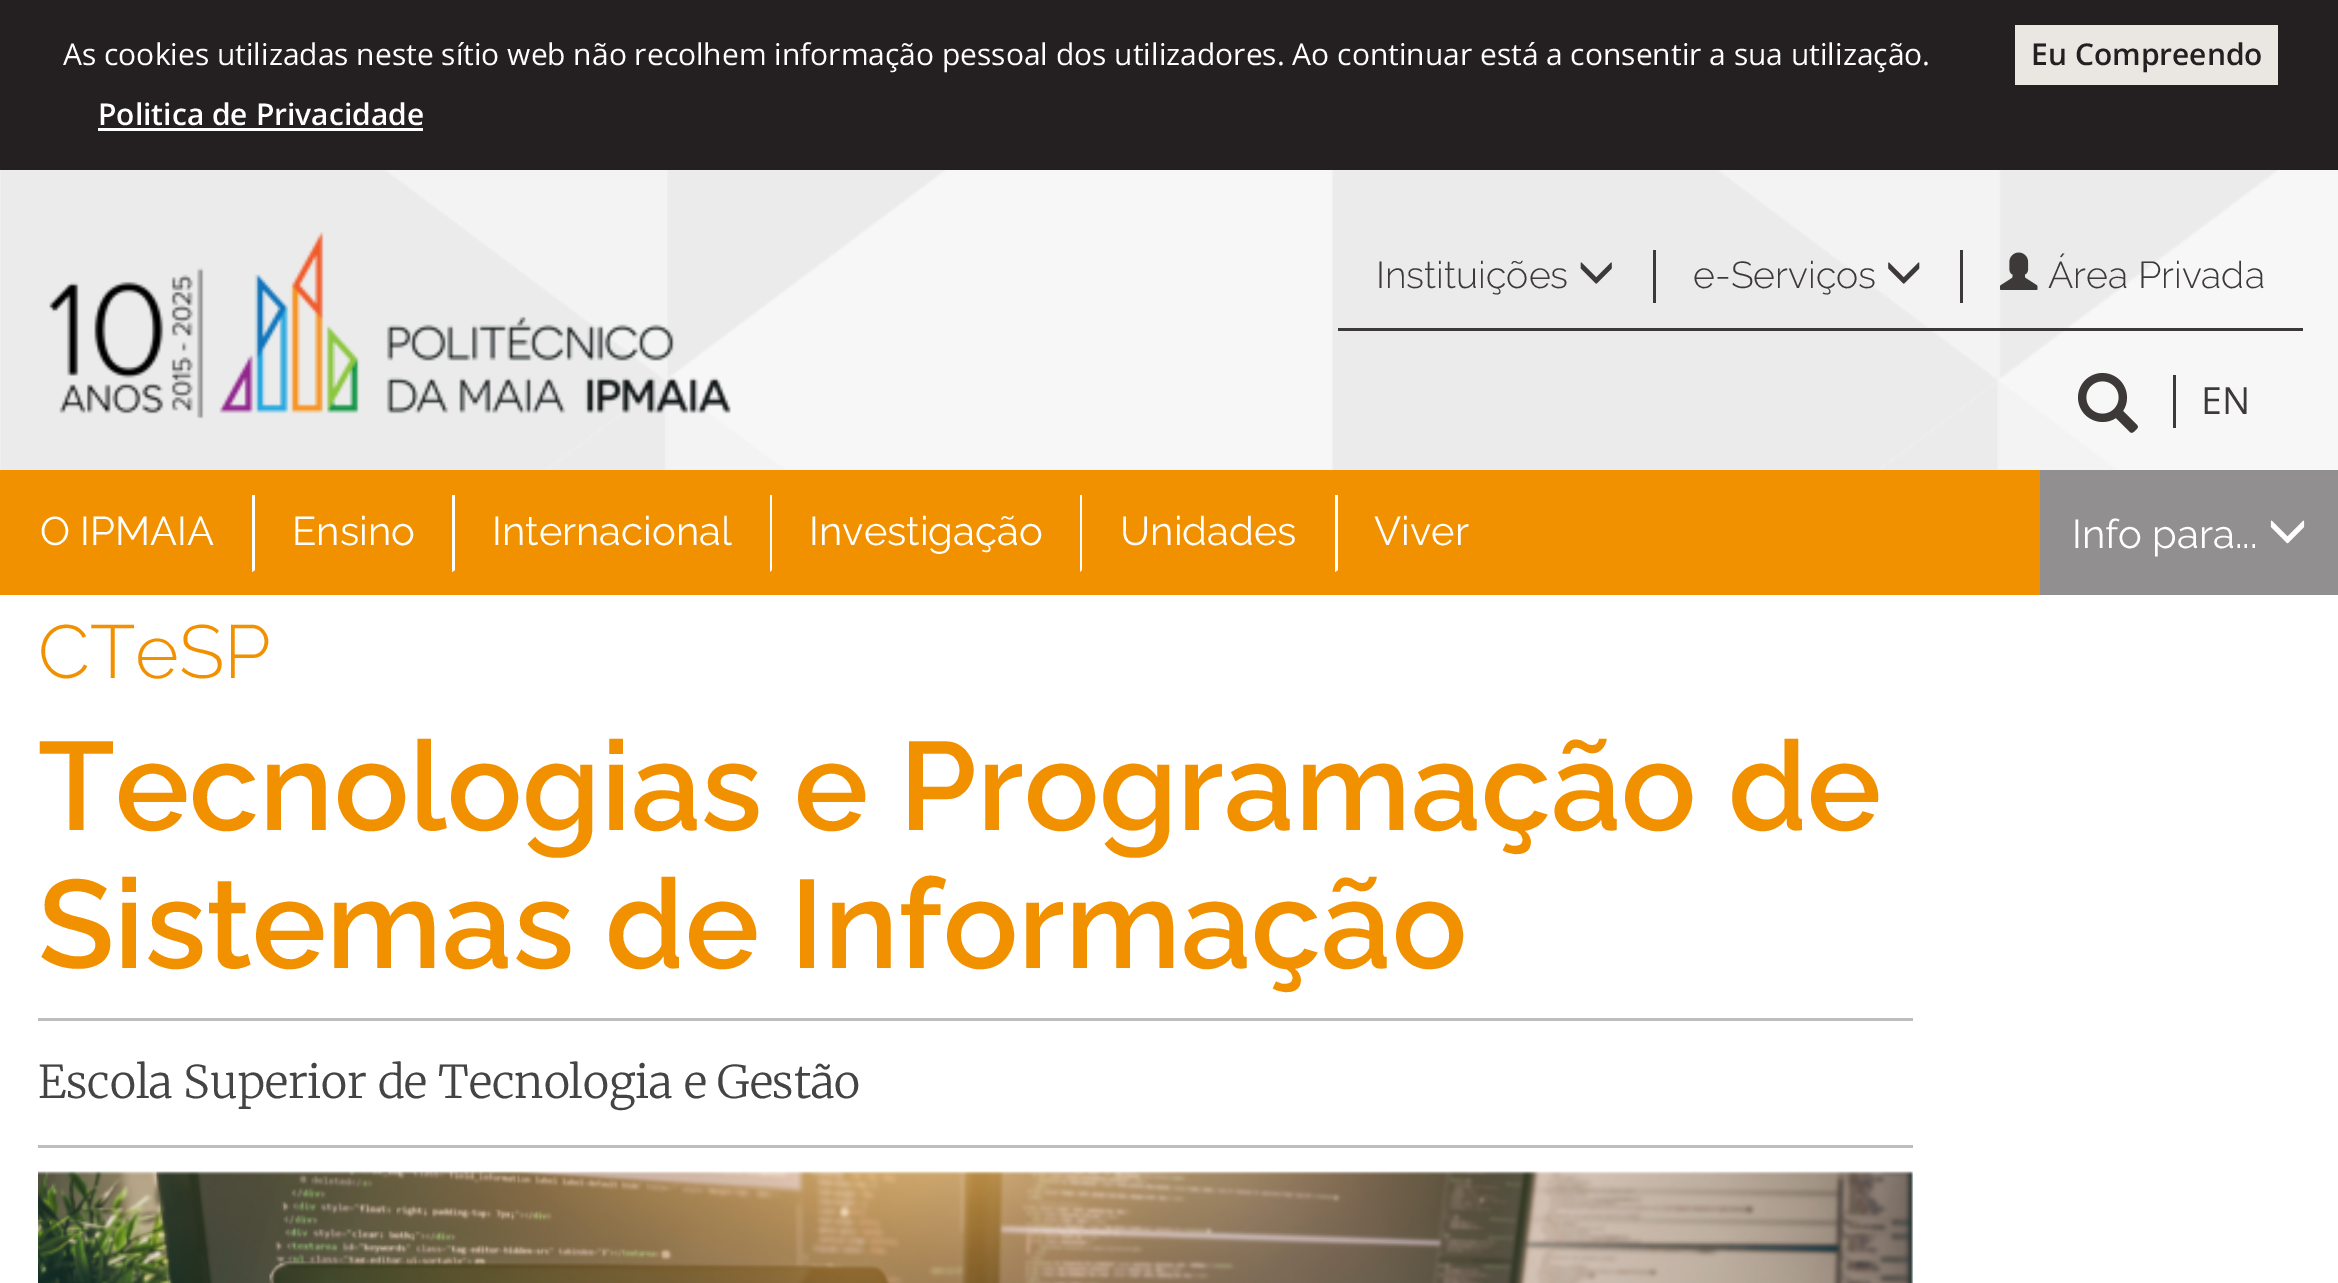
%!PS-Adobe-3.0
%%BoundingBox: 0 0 2338 1283
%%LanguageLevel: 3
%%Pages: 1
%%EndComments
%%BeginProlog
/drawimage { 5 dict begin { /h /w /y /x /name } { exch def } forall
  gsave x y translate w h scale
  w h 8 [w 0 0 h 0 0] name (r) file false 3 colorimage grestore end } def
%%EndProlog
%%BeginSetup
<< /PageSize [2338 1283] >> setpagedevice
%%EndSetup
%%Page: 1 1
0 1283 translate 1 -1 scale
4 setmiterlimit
1 setgray
0 0 2338 1283 rectfill
0.141 0.125 0.129 setrgbcolor
0 0 2338 170 rectfill
0.918 0.906 0.89 setrgbcolor
2015 25 263 60 rectfill
1 setgray
98 128 325 3 rectfill
(images/1.raw) 0 170 2338 300 drawimage
(images/2.raw) 49 232 682 187 drawimage
0.239 0.224 0.22 setrgbcolor
1338 328 965 3 rectfill
1653 250 3 53 rectfill
(images/3.raw) 1580 262 32 22 drawimage
1960 250 3 53 rectfill
(images/4.raw) 1888 262 32 22 drawimage
(images/5.raw) 2000 252 38 38 drawimage
(images/6.raw) 2077 372 61 61 drawimage
2173 375 3 53 rectfill
0.949 0.569 0 setrgbcolor
0 470 2040 125 rectfill
1 setgray
newpath 252 572 moveto 252 495 lineto 255 495 lineto 255 570 lineto closepath fill
newpath 452 572 moveto 452 495 lineto 455 495 lineto 455 570 lineto closepath fill
newpath 770 572 moveto 770 495 lineto 772 495 lineto 772 570 lineto closepath fill
newpath 1080 572 moveto 1080 495 lineto 1082 495 lineto 1082 570 lineto closepath fill
newpath 1335 572 moveto 1335 495 lineto 1338 495 lineto 1338 570 lineto closepath fill
0.569 0.561 0.561 setrgbcolor
2040 470 298 125 rectfill
(images/7.raw) 2270 520 35 24 drawimage
0.741 setgray
38 1018 1875 3 rectfill
38 1145 1875 3 rectfill
(images/8.raw) 38 1171 1875 112 drawimage
/OpenSans-Regular [30 0 0 -30 0 0] selectfont
1 setgray
63 65 moveto (As cookies utilizadas neste sítio web não recolhem informação pessoal dos utilizadores. Ao continuar está a consentir a sua utilização.) show
/OpenSans-SemiBold [30 0 0 -30 0 0] selectfont
0.141 0.125 0.129 setrgbcolor
2031 65 moveto (Eu Compreendo) show
1 setgray
98 125 moveto (Politica de Privacidade) show
/Raleway-Light [37.5 0 0 -37.5 0 0] selectfont
0.239 0.224 0.22 setrgbcolor
1376 288 moveto (Instituições) show
1693 288 moveto (e-Serviços) show
2048 288 moveto (Área Privada) show
/OpenSans-Regular [37.5 0 0 -37.5 0 0] selectfont
2201 414 moveto (EN) show
/Raleway-Regular [40 0 0 -40 0 0] selectfont
1 setgray
40 545 moveto (O IPMAIA) show
292 545 moveto (Ensino) show
492 545 moveto (Internacional) show
809 545 moveto (Investigação) show
1120 545 moveto (Unidades) show
1374 545 moveto (Viver) show
2072 548 moveto (Info para...) show
/Raleway-Light [75 0 0 -75 0 0] selectfont
0.949 0.569 0 setrgbcolor
38 678 moveto (CTeSP) show
/Raleway-SemiBold [125 0 0 -125 0 0] selectfont
38 830 moveto (Tecnologias e Programação de) show
38 968 moveto (Sistemas de Informação) show
/Merriweather-Light [45 0 0 -45 0 0] selectfont
0.267 setgray
38 1098 moveto (Escola Superior de Tecnologia e Gestão) show
showpage
%%EOF
